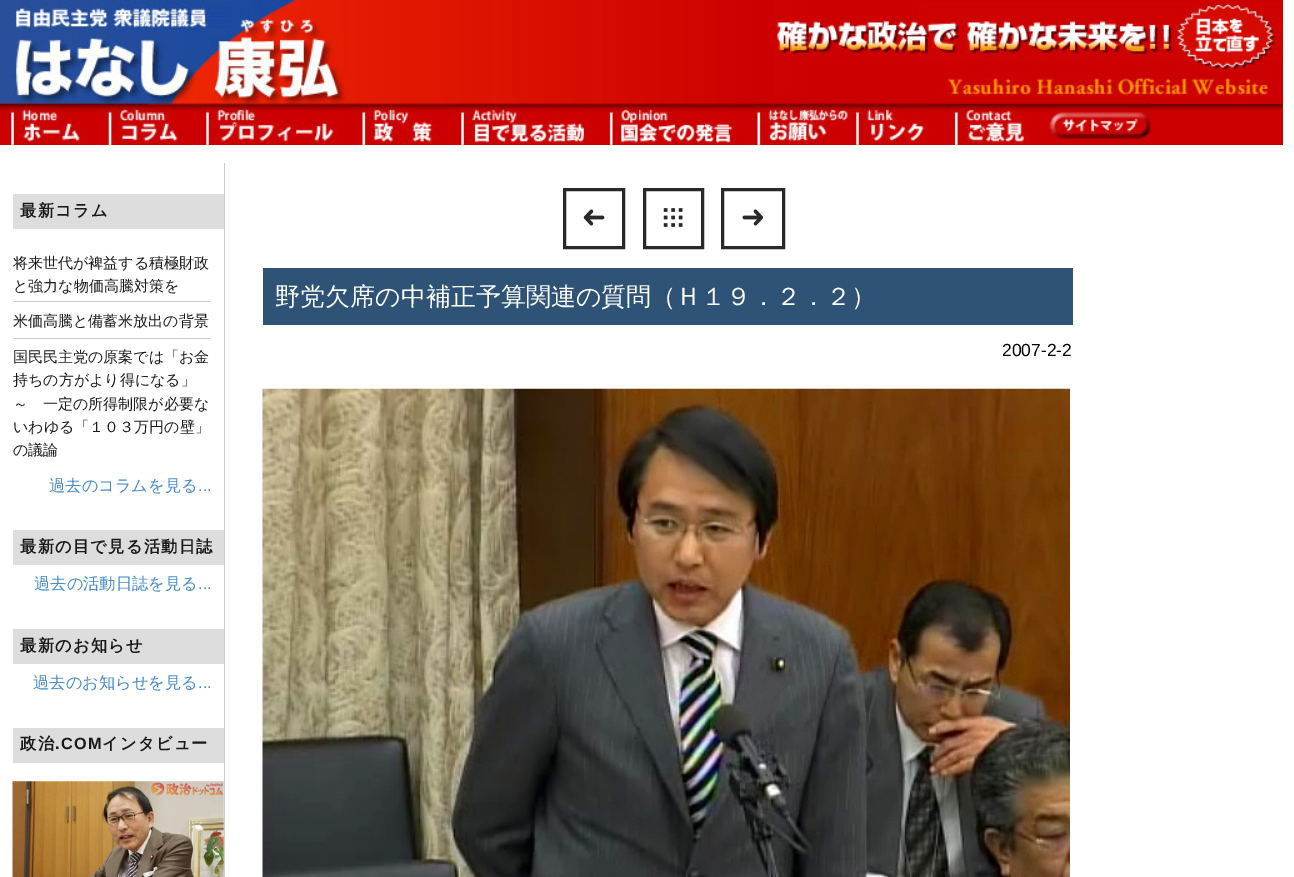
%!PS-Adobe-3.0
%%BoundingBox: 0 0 1294 877
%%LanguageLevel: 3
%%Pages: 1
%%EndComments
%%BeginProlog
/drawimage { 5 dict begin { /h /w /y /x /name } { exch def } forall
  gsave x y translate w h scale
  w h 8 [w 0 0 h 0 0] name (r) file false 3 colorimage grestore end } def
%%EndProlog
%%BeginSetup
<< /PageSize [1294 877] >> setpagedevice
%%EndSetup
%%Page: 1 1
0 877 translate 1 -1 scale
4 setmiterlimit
1 setgray
0 0 1294 877 rectfill
0.8 0 0 setrgbcolor
0 0 1283 104 rectfill
1149 104 134 41 rectfill
(images/3.raw) 0 103 1283 8 drawimage
(images/1.raw) 0 0 754 104 drawimage
(images/2.raw) 757 0 526 104 drawimage
(images/4.raw) 0 103 1151 42 drawimage
0.8 setgray
224 163 1 714 rectfill
0.867 setgray
13 194 211 35 rectfill
0.8 setgray
13 301 198 1 rectfill
13 338 198 1 rectfill
0.867 setgray
13 530 211 35 rectfill
13 629 211 35 rectfill
13 728 211 35 rectfill
(images/5.raw) 12 781 212 96 drawimage
0.161 setgray
3 setlinewidth
564.5 189.5 59 58 rectstroke
(images/6.raw) 583 209 22 17 drawimage
644.5 189.5 58 58 rectstroke
(images/7.raw) 663 208 20 19 drawimage
722.5 189.5 61 58 rectstroke
(images/8.raw) 742 209 22 17 drawimage
0.184 0.325 0.463 setrgbcolor
263 268 810 57 rectfill
(images/9.raw) 262 388 808 489 drawimage
/WenQuanYiZenHei-Bold [16.25 0 0 -16.25 0 0] selectfont
0.098 setgray
20 216 moveto 1.25 0 (最新コラム) ashow
/WenQuanYiZenHei-Medium [15 0 0 -15 0 0] selectfont
13 268 moveto (将来世代が裨益する積極財政) show
13 291 moveto (と強力な物価高騰対策を) show
13 326 moveto (米価高騰と備蓄米放出の背景) show
13 362 moveto (国民民主党の原案では「お金) show
13 385 moveto (持ちの方がより得になる」) show
13 409 moveto (～　一定の所得制限が必要な) show
13 432 moveto (いわゆる「１０３万円の壁」) show
13 455 moveto (の議論) show
/WenQuanYiZenHei-Medium [16.25 0 0 -16.25 0 0] selectfont
0.259 0.545 0.792 setrgbcolor
49 491 moveto (過去のコラムを見る) show
/LiberationSans-Regular [16.25 0 0 -16.25 0 0] selectfont
198 491 moveto (...) show
/WenQuanYiZenHei-Bold [16.25 0 0 -16.25 0 0] selectfont
0.098 setgray
20 552 moveto 1.25 0 (最新の目で見る活動日誌) ashow
/WenQuanYiZenHei-Medium [16.25 0 0 -16.25 0 0] selectfont
0.259 0.545 0.792 setrgbcolor
34 589 moveto (過去の活動日誌を見る) show
/LiberationSans-Regular [16.25 0 0 -16.25 0 0] selectfont
198 589 moveto (...) show
/WenQuanYiZenHei-Bold [16.25 0 0 -16.25 0 0] selectfont
0.098 setgray
20 651 moveto 1.25 0 (最新のお知らせ) ashow
/WenQuanYiZenHei-Medium [16.25 0 0 -16.25 0 0] selectfont
0.259 0.545 0.792 setrgbcolor
33 688 moveto (過去のお知らせを見る) show
/LiberationSans-Regular [16.25 0 0 -16.25 0 0] selectfont
198 688 moveto (...) show
/WenQuanYiZenHei-Bold [16.25 0 0 -16.25 0 0] selectfont
0.098 setgray
20 749 moveto 1.25 0 (政治) ashow
/LiberationSans-Bold [16.25 0 0 -16.25 0 0] selectfont
55 749 moveto 1.25 0 (.COM) ashow
/WenQuanYiZenHei-Bold [16.25 0 0 -16.25 0 0] selectfont
102 749 moveto 1.25 0 (インタビュー) ashow
/WenQuanYiZenHei-Medium [25 0 0 -25 0 0] selectfont
1 setgray
275 305 moveto (野党欠席の中補正予算関連の質問（Ｈ１９．２．２）) show
/LiberationSans-Regular [17.5 0 0 -17.5 0 0] selectfont
0 setgray
1002 356 moveto (2007-2-2) show
showpage
%%EOF
